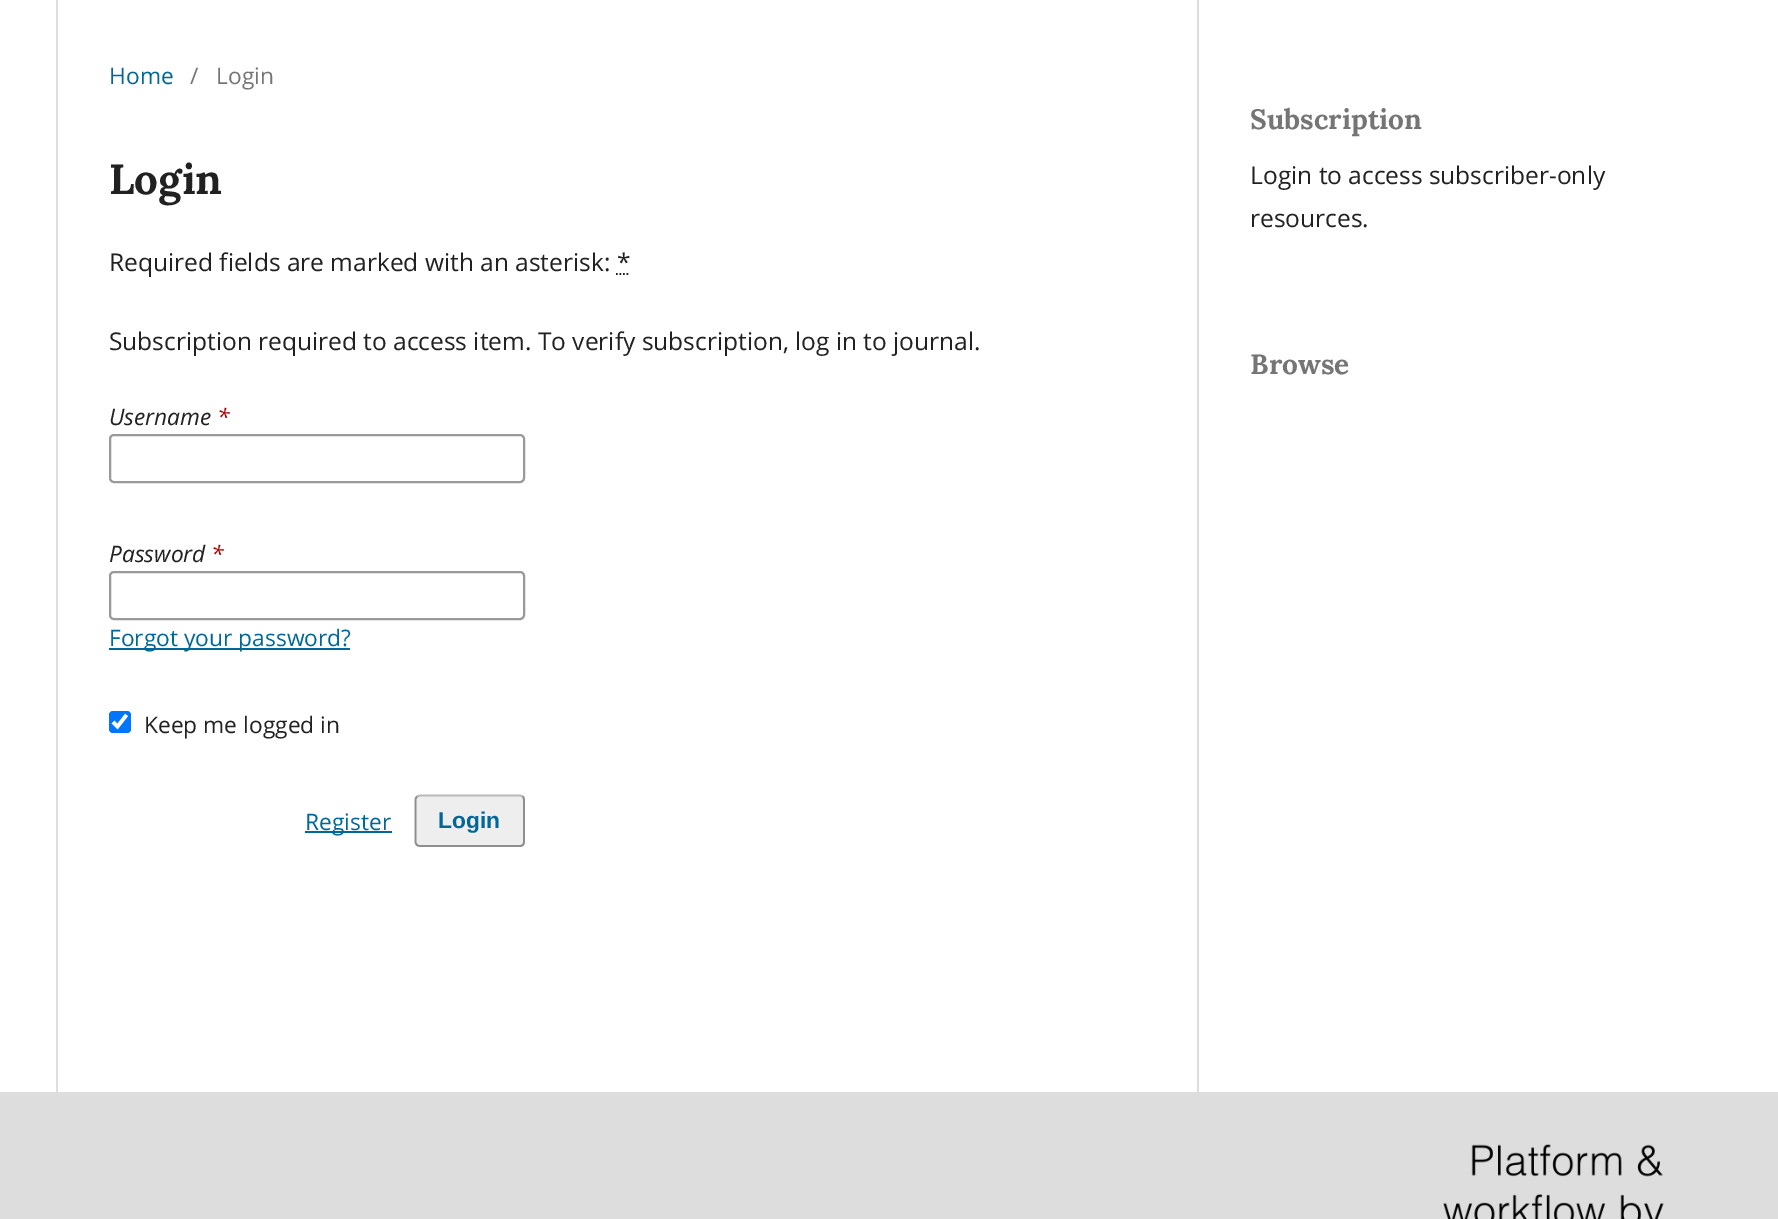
%!PS-Adobe-3.0
%%BoundingBox: 0 0 1778 1219
%%LanguageLevel: 3
%%Pages: 1
%%EndComments
%%BeginProlog
/setalpha { dup .setfillconstantalpha .setstrokeconstantalpha } def
/rrect { 5 dict begin { /r /h /w /y /x } { exch def } forall
  x r add y moveto x w add y 2 copy h add r arct x w add y h add x 1 index r arct
  x y h add x y r arct x y 2 copy exch w add exch r arct closepath end } def
/drawimage { 5 dict begin { /h /w /y /x /name } { exch def } forall
  gsave x y translate w h scale
  w h 8 [w 0 0 h 0 0] name (r) file false 3 colorimage grestore end } def
%%EndProlog
%%BeginSetup
<< /PageSize [1778 1219] /PageUsesTransparency true >> setpagedevice
%%EndSetup
%%Page: 1 1
0 .pushpdf14devicefilter
0 1219 translate 1 -1 scale
4 setmiterlimit
1 setgray
0 0 1778 1219 rectfill
0.867 setgray
56 0 2 1092 rectfill
0.129 setgray
1.8 setlinewidth
[1.75 1.75] 0 setdash
newpath 616 274 moveto 629.5 274 lineto stroke
0.6 setgray
2 setlinewidth
[] 0 setdash
110 435 414 47 4 rrect stroke
110 572 414 47 4 rrect stroke
0 0.404 0.596 setrgbcolor
109 648 241 2 rectfill
0 0.459 1 setrgbcolor
109 711 22 22 4 rrect fill
1 setgray
3.6 setlinewidth
newpath 113 722 moveto 117.5 726.5 lineto 126.5 715 lineto stroke
0 0.404 0.596 setrgbcolor
305 831 87 2 rectfill
0.933 setgray
415 795 110 52 5 rrect fill
0.733 setgray
1.8 setlinewidth
newpath 417 796.5 moveto 419.5 795.5 lineto 520 795.5 lineto 523 796.5 lineto stroke
0.4 setalpha
0 setgray
newpath 523 796.5 moveto 523.5 797.5 524 798.5 524 800 curveto 524 842 lineto 524 843 523.5 844 523 845 curveto 522 845.5 521 846 520 846 curveto 420 846 lineto 419 846 417.5 845.5 417 845 curveto 416 844 415.5 843 415.5 842 curveto 415.5 800 lineto 415.5 798.5 416 797.5 417 796.5 curveto stroke
1 setalpha
0.867 setgray
1197 0 2 1092 rectfill
0 1092 1778 127 rectfill
(images/1.raw) 1443 1144 221 75 drawimage
/OpenSans-Regular [22.75 0 0 -22.75 0 0] selectfont
0 0.404 0.596 setrgbcolor
109 84 moveto (Home) show
0.459 setgray
190 84 moveto (/) show
216 84 moveto (Login) show
/Lora-Bold [42 0 0 -42 0 0] selectfont
0.129 setgray
109 194 moveto (Login) show
/OpenSans-Regular [24.5 0 0 -24.5 0 0] selectfont
109 271 moveto (Required fields are marked with an asterisk: *) show
109 350 moveto (Subscription required to access item. To verify subscription, log in to journal.) show
/OpenSans-Italic [22.75 0 0 -22.75 0 0] selectfont
109 425 moveto (Username) show
0.659 0 0 setrgbcolor
217 425 moveto (*) show
0.129 setgray
109 562 moveto (Password) show
0.659 0 0 setrgbcolor
211 562 moveto (*) show
/OpenSans-Regular [22.75 0 0 -22.75 0 0] selectfont
0 0.404 0.596 setrgbcolor
109 646 moveto (Forgot your password?) show
0.129 setgray
144 733 moveto (Keep me logged in) show
0 0.404 0.596 setrgbcolor
305 830 moveto (Register) show
/LiberationSans-Bold [22.75 0 0 -22.75 0 0] selectfont
438 828 moveto (Login) show
/Lora-Bold [28 0 0 -28 0 0] selectfont
0.459 setgray
1250 129 moveto (Subscription) show
/OpenSans-Regular [24.5 0 0 -24.5 0 0] selectfont
0.129 setgray
1250 184 moveto (Login to access subscriber-only) show
1250 227 moveto (resources.) show
/Lora-Bold [28 0 0 -28 0 0] selectfont
0.459 setgray
1250 374 moveto (Browse) show
.poppdf14devicefilter showpage
%%EOF
